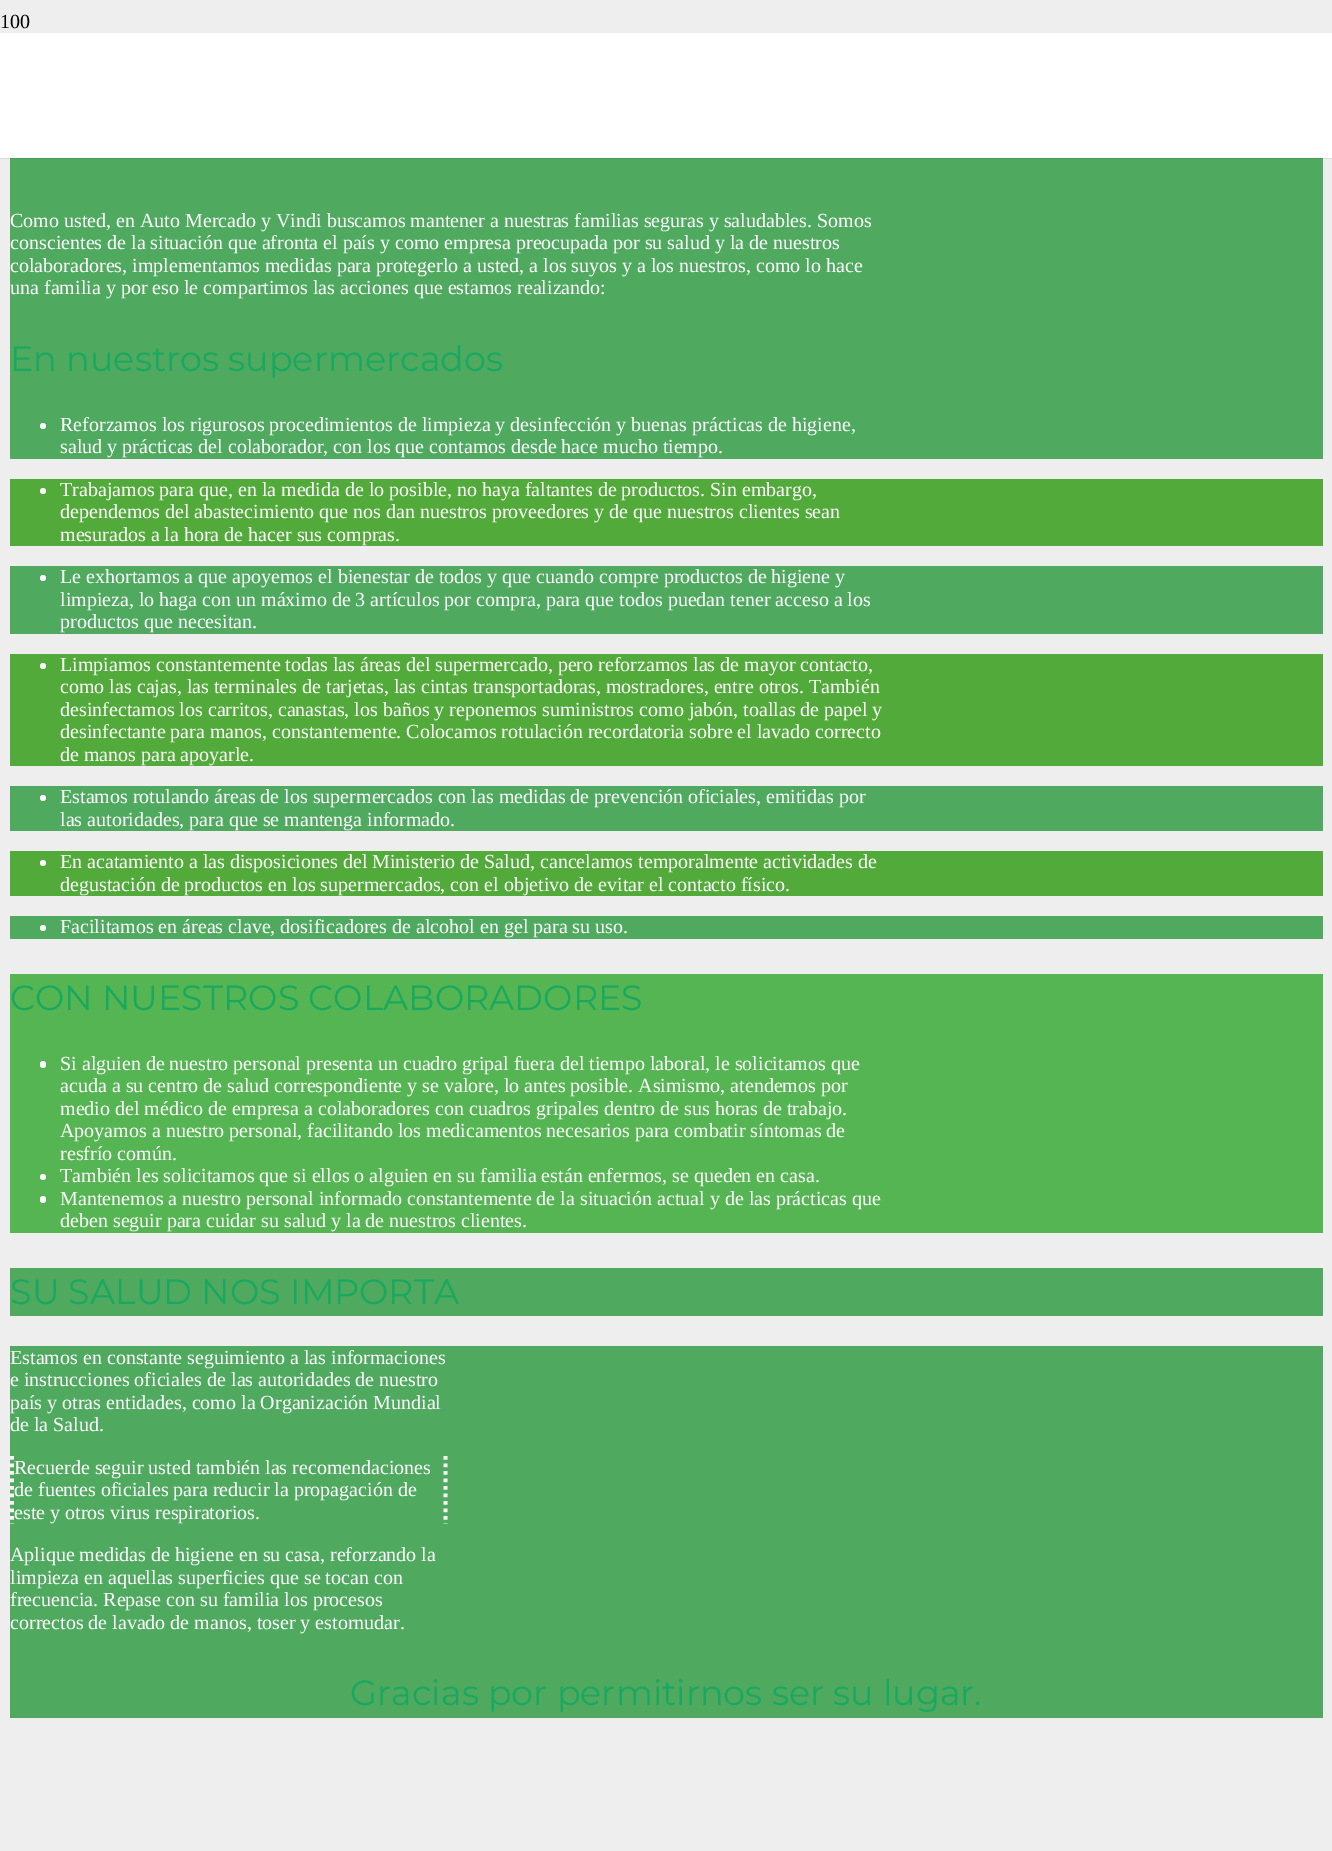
%!PS-Adobe-3.0
%%BoundingBox: 0 0 1332 1851
%%LanguageLevel: 3
%%Pages: 1
%%EndComments
%%BeginProlog
/setalpha { dup .setfillconstantalpha .setstrokeconstantalpha } def
/rrect { 5 dict begin { /r /h /w /y /x } { exch def } forall
  x r add y moveto x w add y 2 copy h add r arct x w add y h add x 1 index r arct
  x y h add x y r arct x y 2 copy exch w add exch r arct closepath end } def
%%EndProlog
%%BeginSetup
<< /PageSize [1332 1851] /PageUsesTransparency true >> setpagedevice
%%EndSetup
%%Page: 1 1
0 .pushpdf14devicefilter
0 1851 translate 1 -1 scale
4 setmiterlimit
0.933 setgray
0 0 1332 1851 rectfill
0.31 0.667 0.373 setrgbcolor
10 158 1313 301 rectfill
0.08 setalpha
0 setgray
newpath 0 158 moveto 0 159 lineto 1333 159 lineto 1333 34 lineto 1332 34 lineto 1332 158 lineto closepath fill
1 setalpha
1 setgray
0 33 1332 125 rectfill
newpath 43 426 3 0 360 arc closepath fill
0.318 0.667 0.227 setrgbcolor
10 479 1313 67 rectfill
1 setgray
newpath 43 491 3 0 360 arc closepath fill
0.31 0.667 0.373 setrgbcolor
10 566 1313 68 rectfill
1 setgray
newpath 43 578 3 0 360 arc closepath fill
0.318 0.667 0.227 setrgbcolor
10 654 1313 112 rectfill
1 setgray
newpath 43 666 3 0 360 arc closepath fill
0.31 0.667 0.373 setrgbcolor
10 786 1313 45 rectfill
1 setgray
newpath 43 798 3 0 360 arc closepath fill
0.318 0.667 0.227 setrgbcolor
10 851 1313 45 rectfill
1 setgray
newpath 43 863 3 0 360 arc closepath fill
0.31 0.667 0.373 setrgbcolor
10 916 1313 23 rectfill
1 setgray
newpath 43 928 3 0 360 arc closepath fill
0.337 0.71 0.325 setrgbcolor
10 974 1313 259 rectfill
1 setgray
40 1061 6 7 3 rrect fill
newpath 43 1177 3 0 360 arc closepath fill
40 1196 6 7 3 rrect fill
0.31 0.667 0.373 setrgbcolor
10 1268 1313 48 rectfill
10 1346 1313 372 rectfill
0.961 setgray
3.8 setlinewidth
[3.75 3.75] 0 setdash
newpath 445.5 1456 moveto 445.5 1524 lineto stroke
newpath 12 1456 moveto 12 1524 lineto stroke
/LiberationSerif-Regular [20 0 0 -20 0 0] selectfont
0 setgray
0 28 moveto (100) show
1 setgray
10 227 moveto (Como usted, en Auto Mercado y Vindi buscamos mantener a nuestras familias seguras y saludables. Somos) show
10 249 moveto (conscientes de la situación que afronta el país y como empresa preocupada por su salud y la de nuestros) show
10 272 moveto (colaboradores, implementamos medidas para protegerlo a usted, a los suyos y a los nuestros, como lo hace) show
10 294 moveto (una familia y por eso le compartimos las acciones que estamos realizando:) show
/Montserrat-Regular [35 0 0 -35 0 0] selectfont
0.098 0.659 0.376 setrgbcolor
10 371 moveto (En nuestros supermercados) show
/LiberationSerif-Regular [20 0 0 -20 0 0] selectfont
1 setgray
60 431 moveto (Reforzamos los rigurosos procedimientos de limpieza y desinfección y buenas prácticas de higiene,) show
60 453 moveto (salud y prácticas del colaborador, con los que contamos desde hace mucho tiempo.) show
60 496 moveto (Trabajamos para que, en la medida de lo posible, no haya faltantes de productos. Sin embargo,) show
60 518 moveto (dependemos del abastecimiento que nos dan nuestros proveedores y de que nuestros clientes sean) show
60 541 moveto (mesurados a la hora de hacer sus compras.) show
60 583 moveto (Le exhortamos a que apoyemos el bienestar de todos y que cuando compre productos de higiene y) show
60 606 moveto (limpieza, lo haga con un máximo de 3 artículos por compra, para que todos puedan tener acceso a los) show
60 628 moveto (productos que necesitan.) show
60 671 moveto (Limpiamos constantemente todas las áreas del supermercado, pero reforzamos las de mayor contacto,) show
60 693 moveto (como las cajas, las terminales de tarjetas, las cintas transportadoras, mostradores, entre otros. También) show
60 716 moveto (desinfectamos los carritos, canastas, los baños y reponemos suministros como jabón, toallas de papel y) show
60 738 moveto (desinfectante para manos, constantemente. Colocamos rotulación recordatoria sobre el lavado correcto) show
60 761 moveto (de manos para apoyarle.) show
60 803 moveto (Estamos rotulando áreas de los supermercados con las medidas de prevención oficiales, emitidas por) show
60 826 moveto (las autoridades, para que se mantenga informado.) show
60 868 moveto (En acatamiento a las disposiciones del Ministerio de Salud, cancelamos temporalmente actividades de) show
60 891 moveto (degustación de productos en los supermercados, con el objetivo de evitar el contacto físico.) show
60 933 moveto (Facilitamos en áreas clave, dosificadores de alcohol en gel para su uso.) show
/Montserrat-Regular [35 0 0 -35 0 0] selectfont
0.098 0.659 0.376 setrgbcolor
10 1010 moveto (CON NUESTROS COLABORADORES) show
/LiberationSerif-Regular [20 0 0 -20 0 0] selectfont
1 setgray
60 1070 moveto (Si alguien de nuestro personal presenta un cuadro gripal fuera del tiempo laboral, le solicitamos que) show
60 1092 moveto (acuda a su centro de salud correspondiente y se valore, lo antes posible. Asimismo, atendemos por) show
60 1115 moveto (medio del médico de empresa a colaboradores con cuadros gripales dentro de sus horas de trabajo.) show
60 1137 moveto (Apoyamos a nuestro personal, facilitando los medicamentos necesarios para combatir síntomas de) show
60 1160 moveto (resfrío común.) show
60 1182 moveto (También les solicitamos que si ellos o alguien en su familia están enfermos, se queden en casa.) show
60 1205 moveto (Mantenemos a nuestro personal informado constantemente de la situación actual y de las prácticas que) show
60 1227 moveto (deben seguir para cuidar su salud y la de nuestros clientes.) show
/Montserrat-Regular [35 0 0 -35 0 0] selectfont
0.098 0.659 0.376 setrgbcolor
10 1304 moveto (SU SALUD NOS IMPORTA) show
/LiberationSerif-Regular [20 0 0 -20 0 0] selectfont
1 setgray
10 1364 moveto (Estamos en constante seguimiento a las informaciones) show
10 1386 moveto (e instrucciones oficiales de las autoridades de nuestro) show
10 1409 moveto (país y otras entidades, como la Organización Mundial) show
10 1431 moveto (de la Salud.) show
14 1474 moveto (Recuerde seguir usted también las recomendaciones) show
14 1496 moveto (de fuentes oficiales para reducir la propagación de) show
14 1519 moveto (este y otros virus respiratorios.) show
10 1561 moveto (Aplique medidas de higiene en su casa, reforzando la) show
10 1584 moveto (limpieza en aquellas superficies que se tocan con) show
10 1606 moveto (frecuencia. Repase con su familia los procesos) show
10 1629 moveto (correctos de lavado de manos, toser y estornudar.) show
/Montserrat-Regular [35 0 0 -35 0 0] selectfont
0.098 0.659 0.376 setrgbcolor
350 1705 moveto (Gracias por permitirnos ser su lugar.) show
.poppdf14devicefilter showpage
%%EOF
